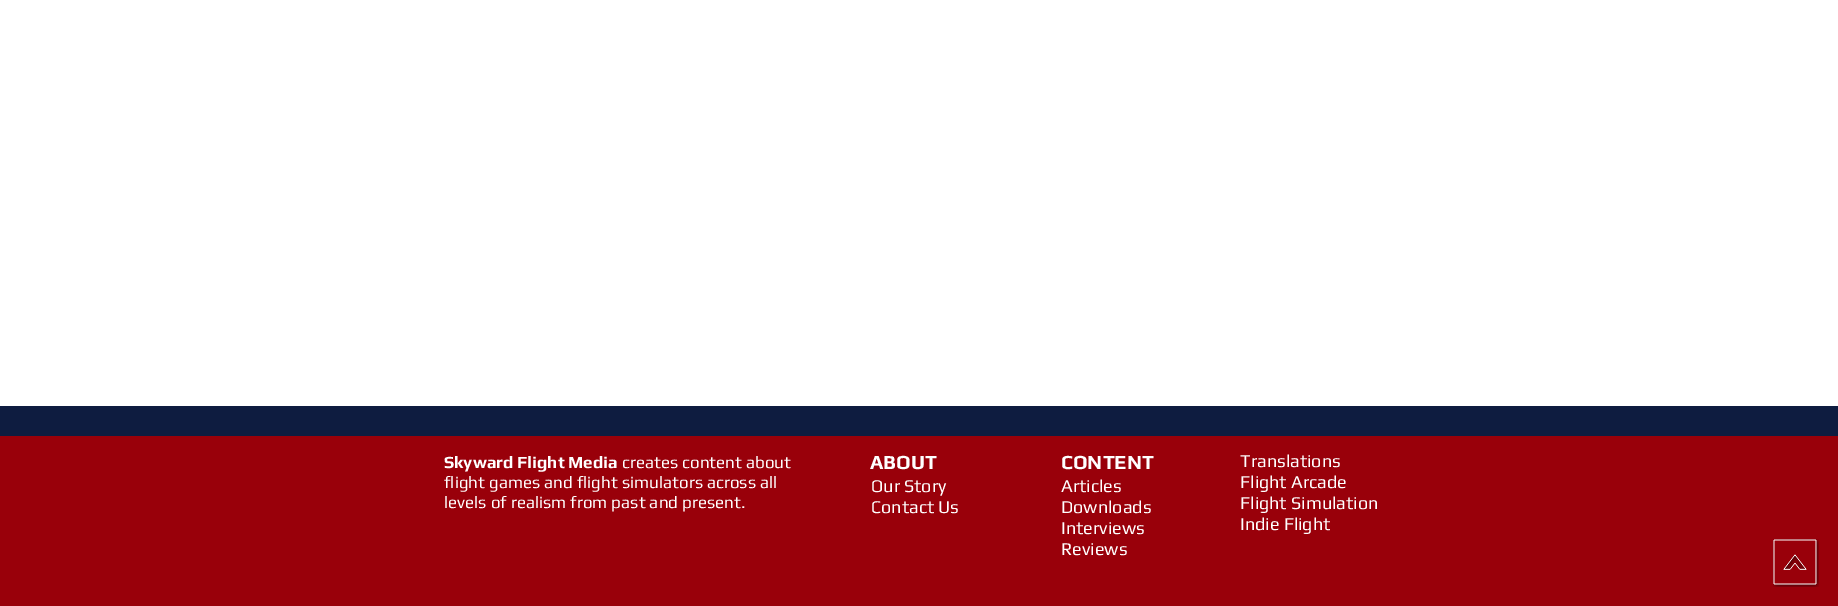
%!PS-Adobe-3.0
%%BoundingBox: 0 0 1838 606
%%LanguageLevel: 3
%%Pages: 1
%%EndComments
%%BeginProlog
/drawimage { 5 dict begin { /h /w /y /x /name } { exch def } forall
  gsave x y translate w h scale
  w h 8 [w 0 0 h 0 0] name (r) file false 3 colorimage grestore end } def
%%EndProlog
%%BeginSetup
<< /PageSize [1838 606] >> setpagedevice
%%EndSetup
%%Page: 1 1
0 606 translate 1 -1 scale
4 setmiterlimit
1 setgray
0 0 1838 606 rectfill
0.6 0 0.039 setrgbcolor
0 436 1838 170 rectfill
0.055 0.11 0.251 setrgbcolor
0 406 1838 30 rectfill
(images/1.raw) 1773 539 46 48 drawimage
/Play-Bold [17 0 0 -17 0 0] selectfont
1 setgray
444 468 moveto (Skyward Flight Media) show
/Play-Regular [17 0 0 -17 0 0] selectfont
622 468 moveto (creates content about) show
444 488 moveto (flight games and flight simulators across all) show
444 508 moveto (levels of realism from past and present.) show
/Play-Bold [20 0 0 -20 0 0] selectfont
870 469 moveto (ABOUT) show
/Play-Regular [18 0 0 -18 0 0] selectfont
871 492 moveto (Our Story) show
871 513 moveto (Contact Us) show
/Play-Bold [20 0 0 -20 0 0] selectfont
1061 469 moveto (CONTENT) show
/Play-Regular [18 0 0 -18 0 0] selectfont
1061 492 moveto (Articles) show
1061 513 moveto (Downloads) show
1061 534 moveto (Interviews) show
1061 555 moveto (Reviews) show
1240 467 moveto (Translations) show
1240 488 moveto (Flight Arcade) show
1240 509 moveto (Flight Simulation) show
1240 530 moveto (Indie Flight) show
showpage
%%EOF
